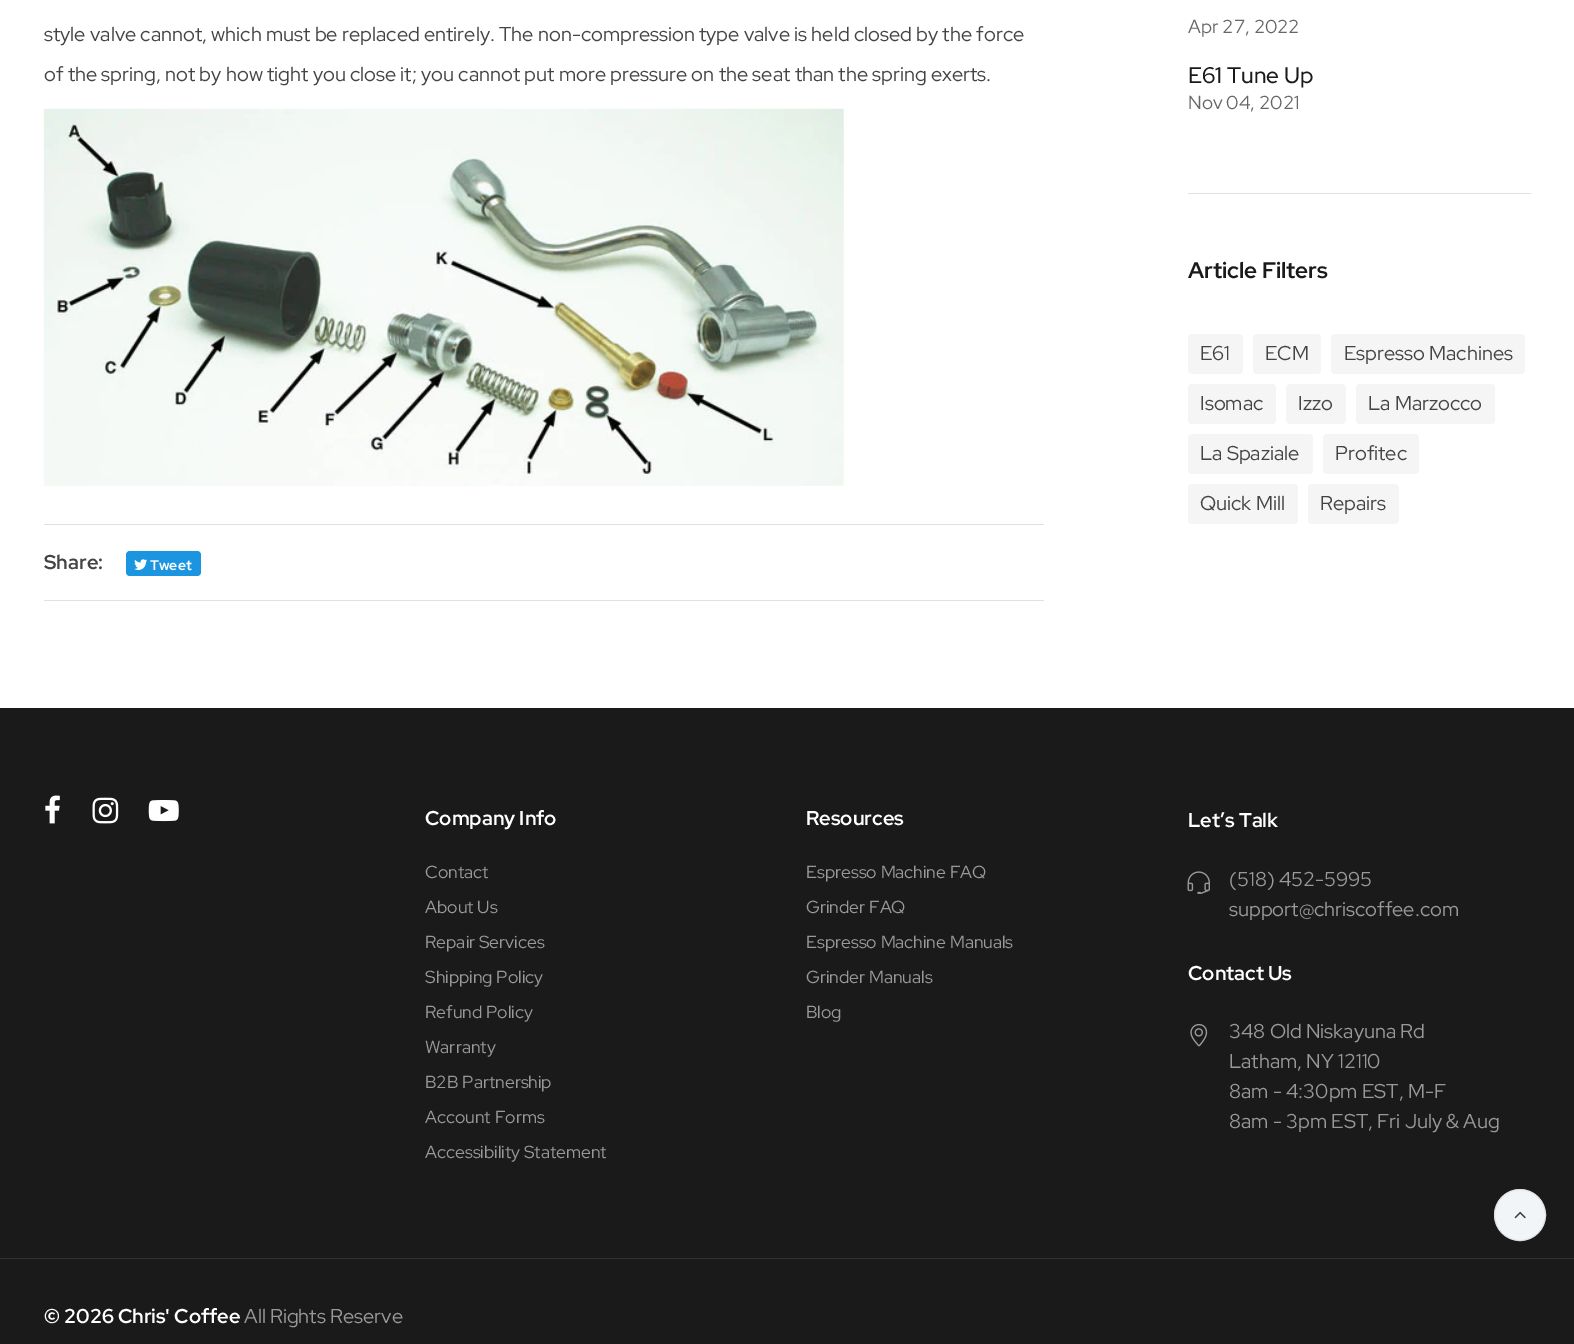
%!PS-Adobe-3.0
%%BoundingBox: 0 0 1574 1344
%%LanguageLevel: 3
%%Pages: 1
%%EndComments
%%BeginProlog
/rrect { 5 dict begin { /r /h /w /y /x } { exch def } forall
  x r add y moveto x w add y 2 copy h add r arct x w add y h add x 1 index r arct
  x y h add x y r arct x y 2 copy exch w add exch r arct closepath end } def
/drawimage { 5 dict begin { /h /w /y /x /name } { exch def } forall
  gsave x y translate w h scale
  w h 8 [w 0 0 h 0 0] name (r) file false 3 colorimage grestore end } def
%%EndProlog
%%BeginSetup
<< /PageSize [1574 1344] >> setpagedevice
%%EndSetup
%%Page: 1 1
0 1344 translate 1 -1 scale
4 setmiterlimit
1 setgray
0 0 1574 1344 rectfill
(images/1.raw) 43 108 801 378 drawimage
0.882 setgray
44 524 1000 1 rectfill
44 600 1000 1 rectfill
0.106 0.584 0.878 setrgbcolor
126 551 75 25 4 rrect fill
(images/2.raw) 134 559 14 11 drawimage
0.882 setgray
1188 193 343 1 rectfill
0.961 setgray
1188 334 55 40 4 rrect fill
1253 334 68 40 4 rrect fill
1331 334 194 40 4 rrect fill
1188 384 88 40 4 rrect fill
1286 384 60 40 4 rrect fill
1356 384 139 40 4 rrect fill
1188 434 125 40 4 rrect fill
1323 434 96 40 4 rrect fill
1188 484 110 40 4 rrect fill
1308 484 91 40 4 rrect fill
0.102 setgray
0 708 1574 636 rectfill
(images/3.raw) 45 795 15 29 drawimage
(images/4.raw) 92 797 27 27 drawimage
(images/5.raw) 148 800 31 22 drawimage
(images/6.raw) 1187 871 23 23 drawimage
(images/7.raw) 1190 1023 18 24 drawimage
0.192 setgray
0 1258 1574 1 rectfill
0.949 0.961 0.969 setrgbcolor
newpath 1520 1215 25.5 0 360 arc closepath gsave fill grestore
0.882 setgray
stroke
(images/8.raw) 1514 1211 12 8 drawimage
/RedHatDisplay-Regular [20 0 0 -20 0 0] selectfont
0.267 setgray
44 41 moveto (style valve cannot, which must be replaced entirely. The non-compression type valve is held closed by the force) show
44 81 moveto (of the spring, not by how tight you close it; you cannot put more pressure on the seat than the spring exerts.) show
/RedHatDisplay-Bold [20 0 0 -20 0 0] selectfont
44 569 moveto (Share:) show
/RedHatDisplay-Bold [14 0 0 -14 0 0] selectfont
1 setgray
150 570 moveto (Tweet) show
/RedHatDisplay-Regular [18.75 0 0 -18.75 0 0] selectfont
0.4 setgray
1188 33 moveto (Apr 27, 2022) show
/RedHatDisplay-Medium [22.5 0 0 -22.5 0 0] selectfont
0.102 setgray
1188 83 moveto (E61 Tune Up) show
/RedHatDisplay-Regular [18.75 0 0 -18.75 0 0] selectfont
0.4 setgray
1188 109 moveto (Nov 04, 2021) show
/RedHatDisplay-Bold [22.5 0 0 -22.5 0 0] selectfont
0.102 setgray
1188 278 moveto (Article Filters) show
/RedHatDisplay-Regular [20 0 0 -20 0 0] selectfont
0.267 setgray
1200 360 moveto (E61) show
1265 360 moveto (ECM) show
1344 360 moveto (Espresso Machines) show
1200 410 moveto (Isomac) show
1298 410 moveto (Izzo) show
1368 410 moveto (La Marzocco) show
1200 460 moveto (La Spaziale) show
1335 460 moveto (Profitec) show
1200 510 moveto (Quick Mill) show
1320 510 moveto (Repairs) show
/RedHatDisplay-Bold [20 0 0 -20 0 0] selectfont
1 setgray
425 825 moveto (Company Info) show
/RedHatDisplay-Regular [17.5 0 0 -17.5 0 0] selectfont
0.6 setgray
425 878 moveto (Contact) show
425 913 moveto (About Us) show
425 948 moveto (Repair Services) show
425 983 moveto (Shipping Policy) show
425 1018 moveto (Refund Policy) show
425 1053 moveto (Warranty) show
425 1088 moveto (B2B Partnership) show
425 1123 moveto (Account Forms) show
425 1158 moveto (Accessibility Statement) show
/RedHatDisplay-Bold [20 0 0 -20 0 0] selectfont
1 setgray
806 825 moveto (Resources) show
/RedHatDisplay-Regular [17.5 0 0 -17.5 0 0] selectfont
0.6 setgray
806 878 moveto (Espresso Machine FAQ) show
806 913 moveto (Grinder FAQ) show
806 948 moveto (Espresso Machine Manuals) show
806 983 moveto (Grinder Manuals) show
806 1018 moveto (Blog) show
/RedHatDisplay-Bold [20 0 0 -20 0 0] selectfont
1 setgray
1188 827 moveto (Let’s Talk) show
/RedHatDisplay-Regular [20 0 0 -20 0 0] selectfont
0.6 setgray
1229 886 moveto (\(518\) 452-5995) show
1229 916 moveto (support@chriscoffee.com) show
/RedHatDisplay-Bold [20 0 0 -20 0 0] selectfont
1 setgray
1188 980 moveto (Contact Us) show
/RedHatDisplay-Regular [20 0 0 -20 0 0] selectfont
0.6 setgray
1229 1038 moveto (348 Old Niskayuna Rd) show
1229 1068 moveto (Latham, NY 12110) show
1229 1098 moveto (8am - 4:30pm EST, M-F) show
1229 1128 moveto (8am - 3pm EST, Fri July & Aug) show
/RedHatDisplay-Bold [20 0 0 -20 0 0] selectfont
1 setgray
44 1323 moveto (© 2026 Chris' Coffee) show
/RedHatDisplay-Regular [20 0 0 -20 0 0] selectfont
0.6 setgray
244 1323 moveto (All Rights Reserve) show
showpage
%%EOF
